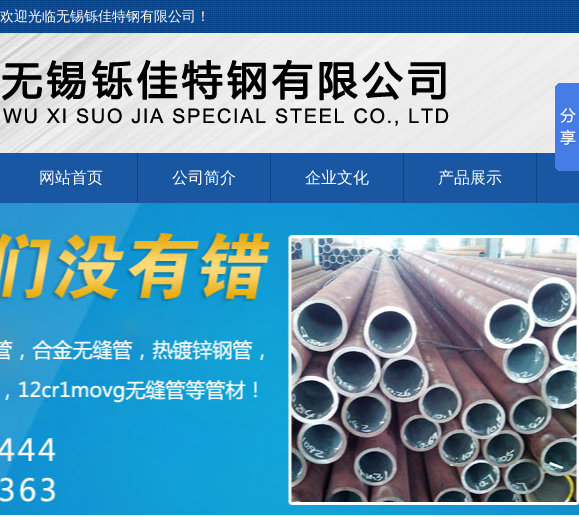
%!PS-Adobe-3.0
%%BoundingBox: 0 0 579 517
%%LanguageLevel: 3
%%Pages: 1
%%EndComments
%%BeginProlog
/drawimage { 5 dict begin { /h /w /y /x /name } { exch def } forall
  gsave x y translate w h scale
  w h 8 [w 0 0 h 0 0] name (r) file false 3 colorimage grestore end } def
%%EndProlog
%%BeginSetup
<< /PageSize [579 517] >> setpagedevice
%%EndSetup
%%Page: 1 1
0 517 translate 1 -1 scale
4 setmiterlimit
1 setgray
0 0 579 517 rectfill
(images/1.raw) 0 0 579 153 drawimage
(images/2.raw) 2 59 447 67 drawimage
0.102 0.341 0.635 setrgbcolor
0 153 579 50 rectfill
(images/3.raw) 555 83 24 88 drawimage
0.051 0.263 0.525 setrgbcolor
137 153 1 50 rectfill
270 153 1 50 rectfill
403 153 1 50 rectfill
536 153 1 50 rectfill
(images/4.raw) 0 203 579 312 drawimage
/WenQuanYiZenHei-Medium [14 0 0 -14 0 0] selectfont
1 setgray
0 21 moveto (欢迎光临无锡铄佳特钢有限公司！) show
/WenQuanYiZenHei-Medium [16 0 0 -16 0 0] selectfont
39 183 moveto (网站首页) show
172 183 moveto (公司简介) show
305 183 moveto (企业文化) show
438 183 moveto (产品展示) show
showpage
%%EOF
